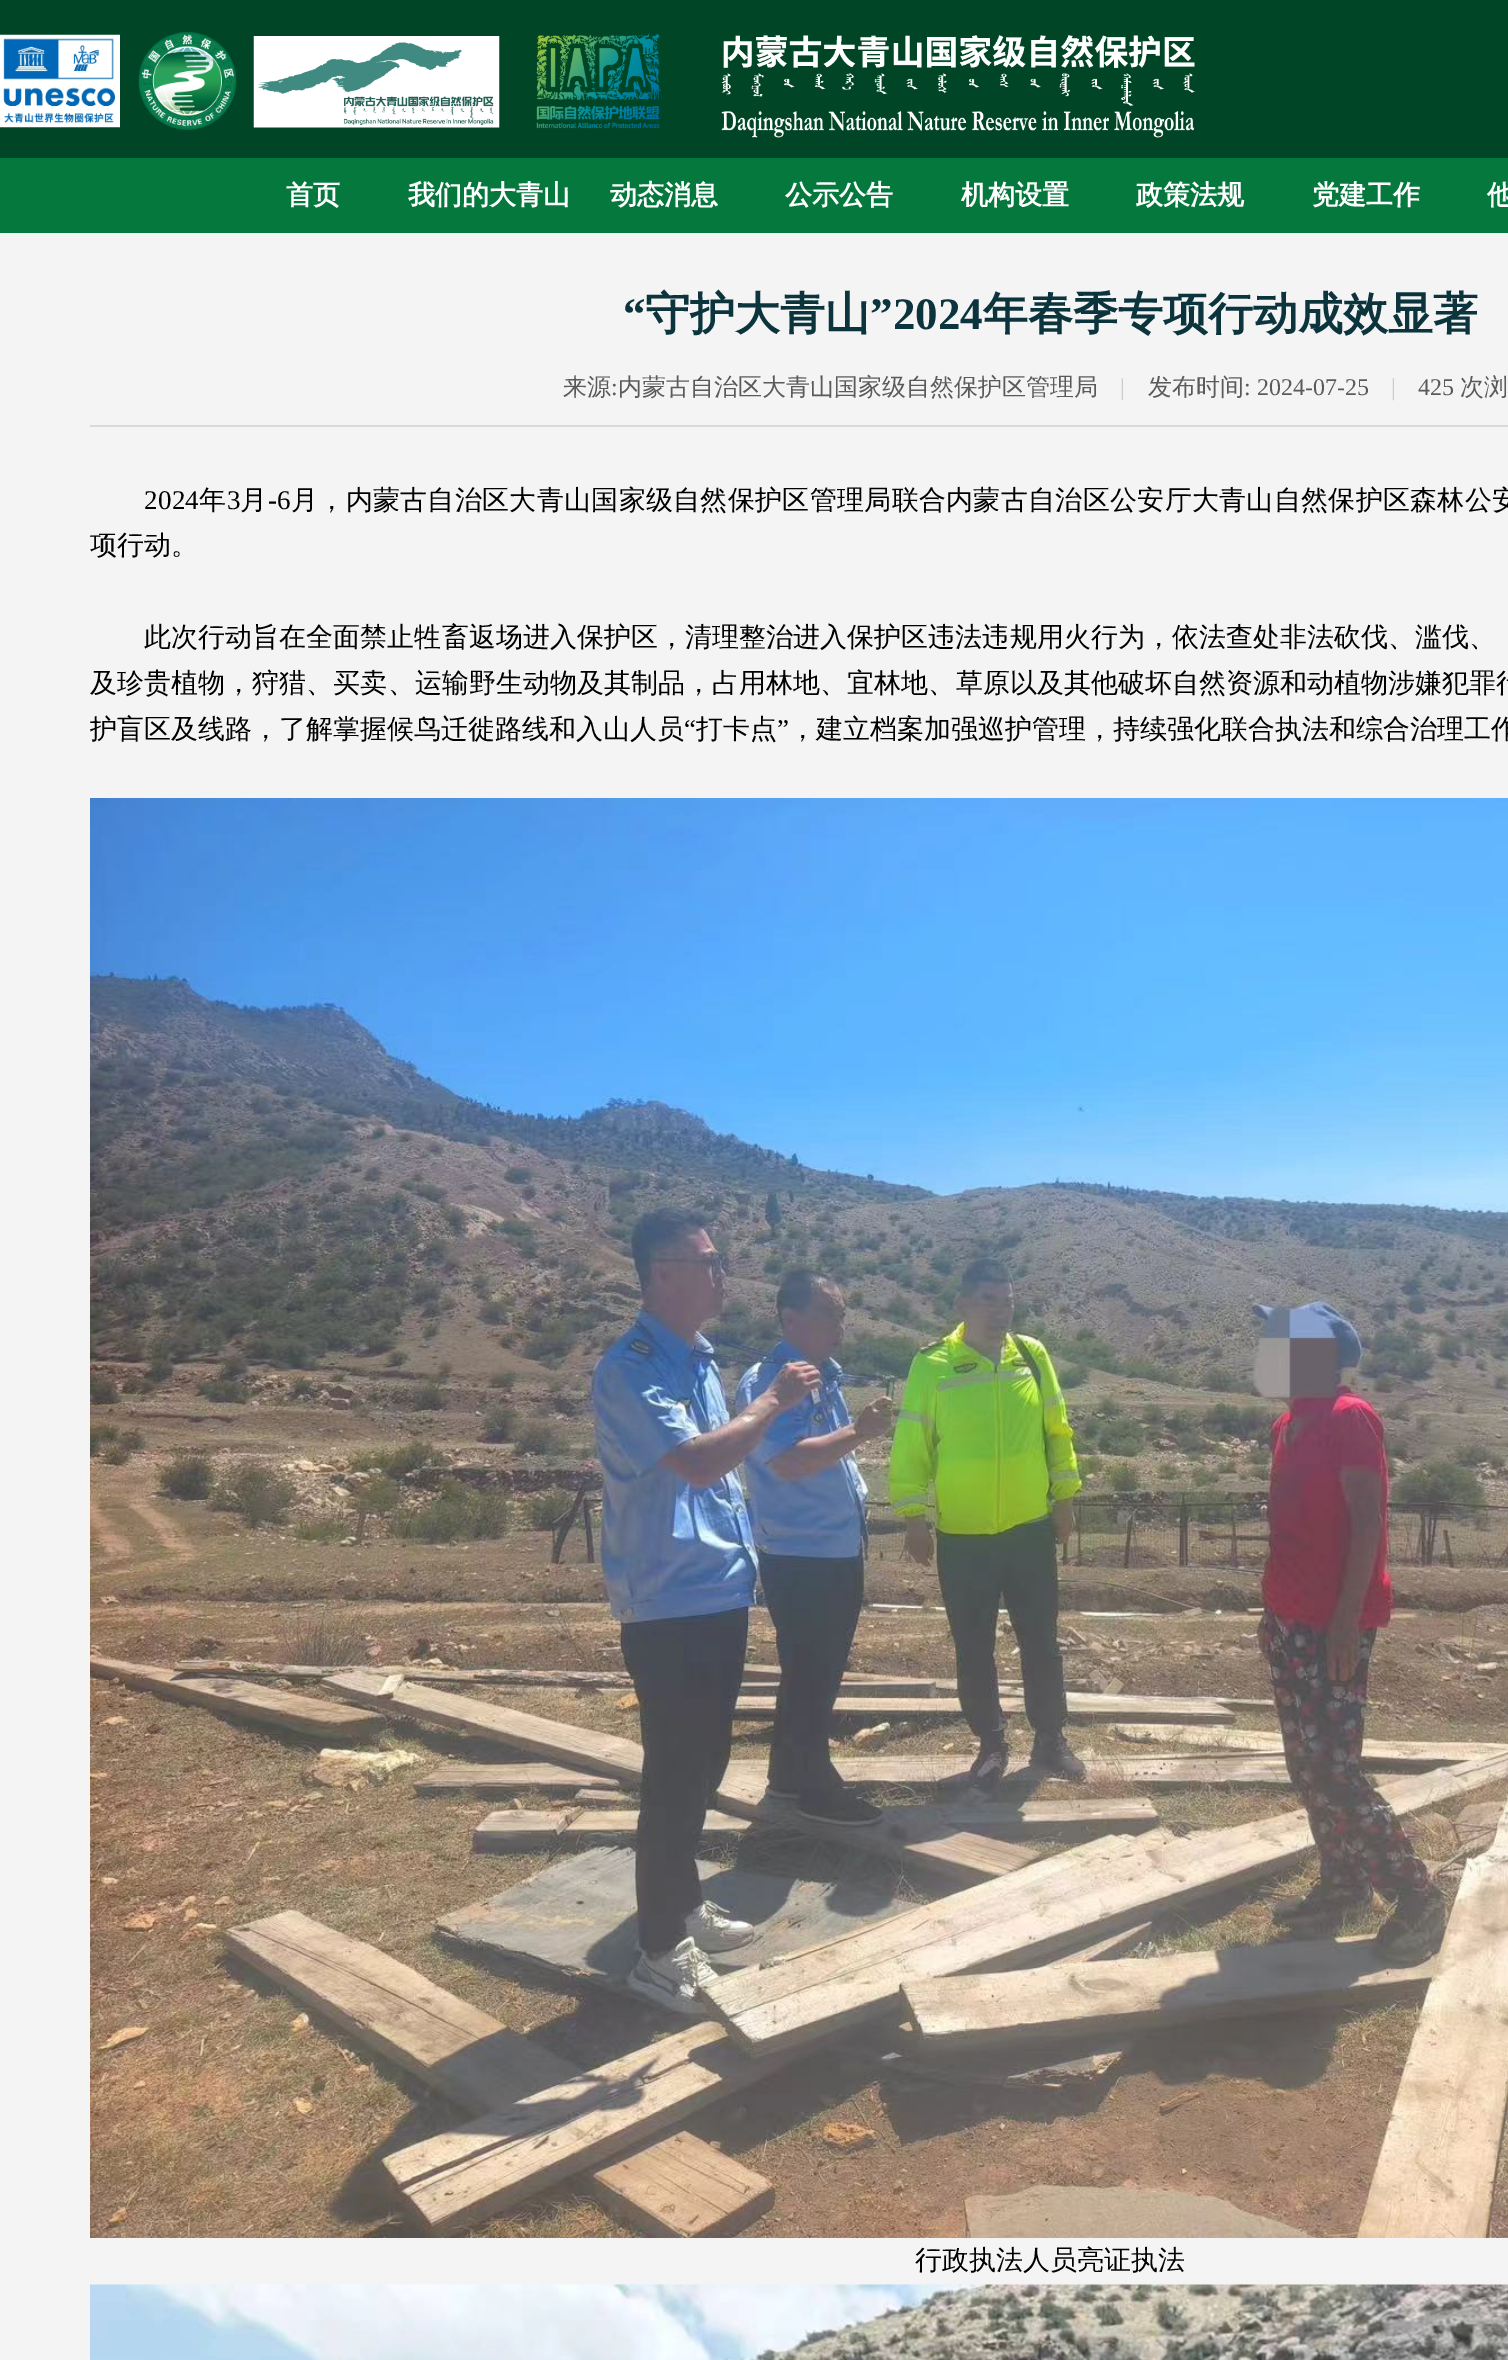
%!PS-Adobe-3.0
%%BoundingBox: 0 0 1508 2360
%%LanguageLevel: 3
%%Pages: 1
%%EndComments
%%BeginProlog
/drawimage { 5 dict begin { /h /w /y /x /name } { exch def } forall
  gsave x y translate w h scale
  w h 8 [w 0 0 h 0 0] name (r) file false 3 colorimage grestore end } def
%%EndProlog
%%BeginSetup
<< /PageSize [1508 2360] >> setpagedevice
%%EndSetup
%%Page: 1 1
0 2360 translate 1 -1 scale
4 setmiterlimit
0.957 setgray
0 0 1508 2360 rectfill
0 0.275 0.149 setrgbcolor
0 0 1508 158 rectfill
(images/1.raw) 0 34 120 94 drawimage
(images/2.raw) 138 32 99 98 drawimage
(images/3.raw) 253 36 247 92 drawimage
(images/4.raw) 536 34 125 95 drawimage
(images/5.raw) 721 35 475 103 drawimage
0.016 0.471 0.239 setrgbcolor
0 158 1508 75 rectfill
0.851 setgray
90 425 1418 2 rectfill
(images/6.raw) 90 798 1418 1440 drawimage
(images/7.raw) 90 2284 1418 76 drawimage
/WenQuanYiZenHei-Bold [27 0 0 -27 0 0] selectfont
1 setgray
286 204 moveto (首页) show
408 204 moveto (我们的大青山) show
610 204 moveto (动态消息) show
785 204 moveto (公示公告) show
961 204 moveto (机构设置) show
1136 204 moveto (政策法规) show
1312 204 moveto (党建工作) show
1487 204 moveto (他) show
/LiberationSerif-Bold [45 0 0 -45 0 0] selectfont
0.047 0.204 0.239 setrgbcolor
623 329 moveto (“) show
/WenQuanYiZenHei-Bold [45 0 0 -45 0 0] selectfont
645 329 moveto (守护大青山) show
/LiberationSerif-Bold [45 0 0 -45 0 0] selectfont
870 329 moveto (”2024) show
/WenQuanYiZenHei-Bold [45 0 0 -45 0 0] selectfont
983 329 moveto (年春季专项行动成效显著) show
/WenQuanYiZenHei-Medium [24 0 0 -24 0 0] selectfont
0.353 setgray
563 395 moveto (来源) show
/LiberationSerif-Regular [24 0 0 -24 0 0] selectfont
611 395 moveto (:) show
/WenQuanYiZenHei-Medium [24 0 0 -24 0 0] selectfont
618 395 moveto (内蒙古自治区大青山国家级自然保护区管理局) show
/LiberationSerif-Regular [24 0 0 -24 0 0] selectfont
0.8 setgray
1120 395 moveto (|) show
/WenQuanYiZenHei-Medium [24 0 0 -24 0 0] selectfont
0.353 setgray
1148 395 moveto (发布时间) show
/LiberationSerif-Regular [24 0 0 -24 0 0] selectfont
1244 395 moveto (: 2024-07-25) show
0.8 setgray
1391 395 moveto (|) show
0.353 setgray
1418 395 moveto (425) show
/WenQuanYiZenHei-Medium [24 0 0 -24 0 0] selectfont
1460 395 moveto (次浏) show
/LiberationSerif-Regular [27 0 0 -27 0 0] selectfont
0 setgray
144 509 moveto 0.3 0 (2024) ashow
/WenQuanYiZenHei-Medium [27 0 0 -27 0 0] selectfont
199 509 moveto 0.3 0 (年) ashow
/LiberationSerif-Regular [27 0 0 -27 0 0] selectfont
227 509 moveto 0.3 0 (3) ashow
/WenQuanYiZenHei-Medium [27 0 0 -27 0 0] selectfont
240 509 moveto 0.3 0 (月) ashow
/LiberationSerif-Regular [27 0 0 -27 0 0] selectfont
268 509 moveto 0.3 0 (-6) ashow
/WenQuanYiZenHei-Medium [27 0 0 -27 0 0] selectfont
291 509 moveto 0.3 0 (月，内蒙古自治区大青山国家级自然保护区管理局联合内蒙古自治区公安厅大青山自然保护区森林公安) ashow
90 554 moveto (项行动。) show
144 646 moveto 0.05 0 (此次行动旨在全面禁止牲畜返场进入保护区，清理整治进入保护区违法违规用火行为，依法查处非法砍伐、滥伐、) ashow
90 692 moveto 0.05 0 (及珍贵植物，狩猎、买卖、运输野生动物及其制品，占用林地、宜林地、草原以及其他破坏自然资源和动植物涉嫌犯罪行) ashow
90 738 moveto (护盲区及线路，了解掌握候鸟迁徙路线和入山人员) show
/LiberationSerif-Regular [27 0 0 -27 0 0] selectfont
684 738 moveto (“) show
/WenQuanYiZenHei-Medium [27 0 0 -27 0 0] selectfont
696 738 moveto (打卡点) show
/LiberationSerif-Regular [27 0 0 -27 0 0] selectfont
777 738 moveto (”) show
/WenQuanYiZenHei-Medium [27 0 0 -27 0 0] selectfont
789 738 moveto (，建立档案加强巡护管理，持续强化联合执法和综合治理工作) show
915 2269 moveto (行政执法人员亮证执法) show
showpage
%%EOF
